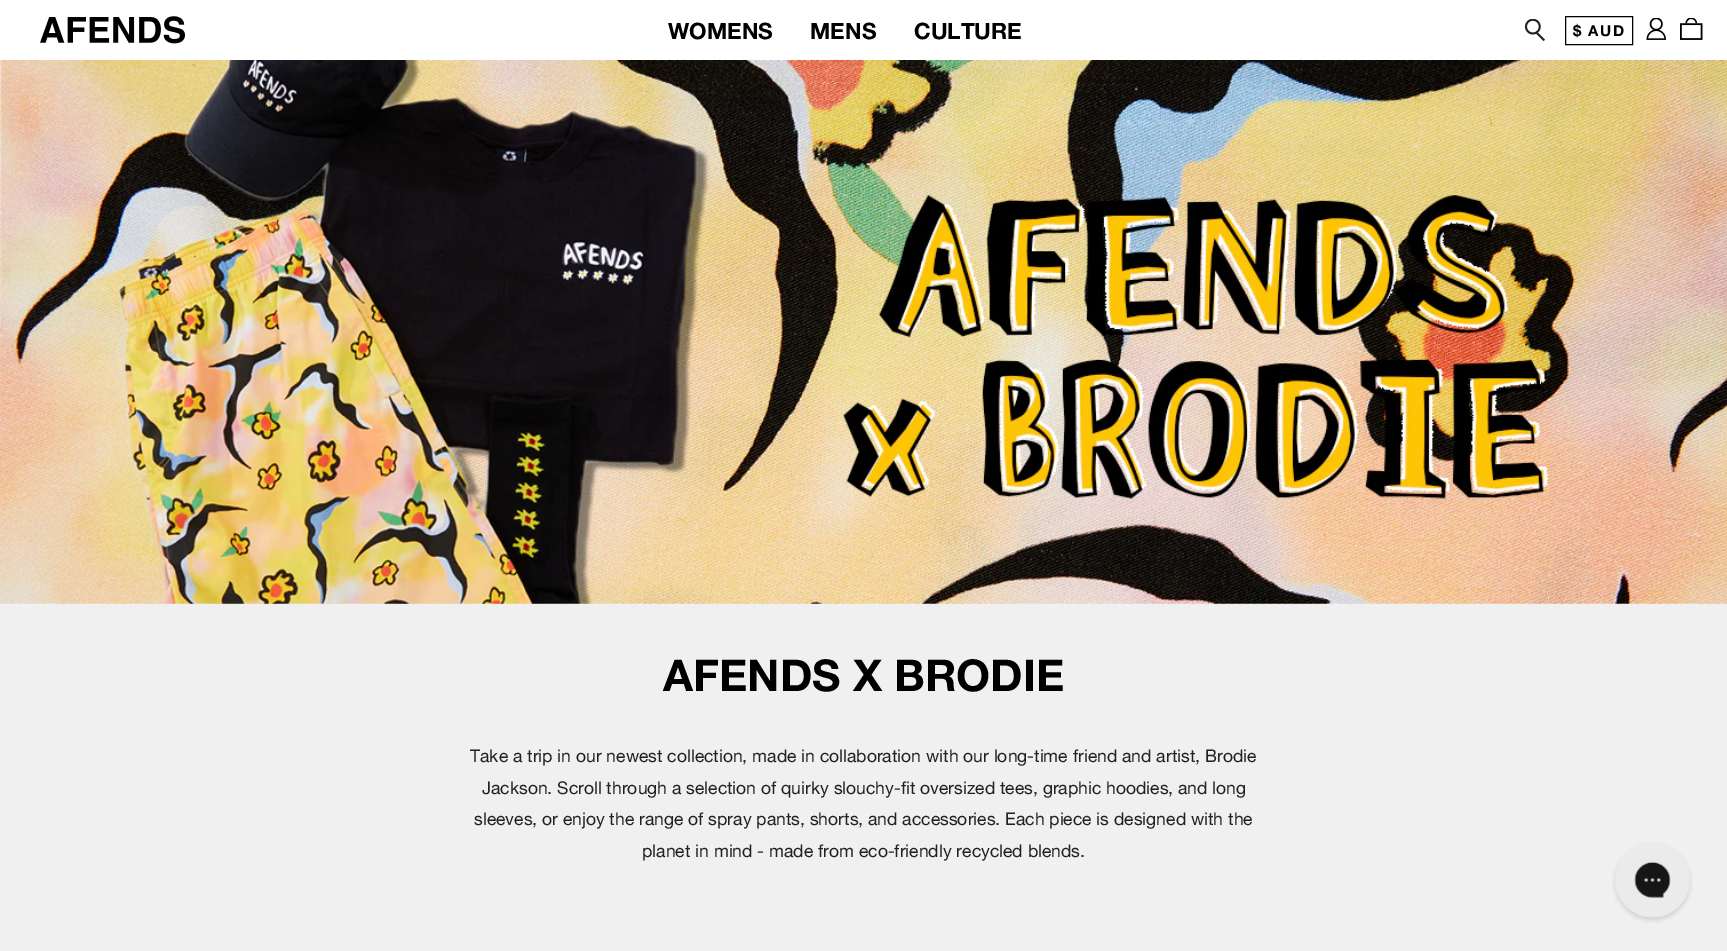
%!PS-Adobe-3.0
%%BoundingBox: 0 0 1727 951
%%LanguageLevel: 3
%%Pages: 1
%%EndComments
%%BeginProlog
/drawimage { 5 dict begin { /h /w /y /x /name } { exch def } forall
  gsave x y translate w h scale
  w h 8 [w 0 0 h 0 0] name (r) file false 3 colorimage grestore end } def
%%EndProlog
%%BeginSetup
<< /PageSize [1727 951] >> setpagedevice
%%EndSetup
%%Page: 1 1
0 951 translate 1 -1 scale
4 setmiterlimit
0.941 setgray
0 0 1727 951 rectfill
1 setgray
0 0 1727 60 rectfill
(images/1.raw) 40 16 145 28 drawimage
(images/2.raw) 1524 19 21 22 drawimage
0 setgray
1565.5 16.5 67 28 rectstroke
(images/3.raw) 1646 18 20 22 drawimage
(images/4.raw) 1680 18 23 22 drawimage
(images/5.raw) 0 60 1727 544 drawimage
(images/6.raw) 1612 842 81 81 drawimage
/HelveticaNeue-Bold [22.5 0 0 -22.5 0 0] selectfont
668 39 moveto (WOMENS) show
810 39 moveto (MENS) show
914 39 moveto (CULTURE) show
/HelveticaNeue-Bold [15 0 0 -15 0 0] selectfont
1573 36 moveto 1.5 0 ($ AUD) ashow
/HelveticaNeue-Bold [43.75 0 0 -43.75 0 0] selectfont
663 691 moveto (AFENDS X BRODIE) show
/HelveticaNeue-Regular [17.5 0 0 -17.5 0 0] selectfont
0.133 setgray
470 762 moveto (Take a trip in our newest collection, made in collaboration with our long-time friend and artist, Brodie) show
482 794 moveto (Jackson. Scroll through a selection of quirky slouchy-fit oversized tees, graphic hoodies, and long) show
474 825 moveto (sleeves, or enjoy the range of spray pants, shorts, and accessories. Each piece is designed with the) show
642 857 moveto (planet in mind - made from eco-friendly recycled blends.) show
showpage
%%EOF
